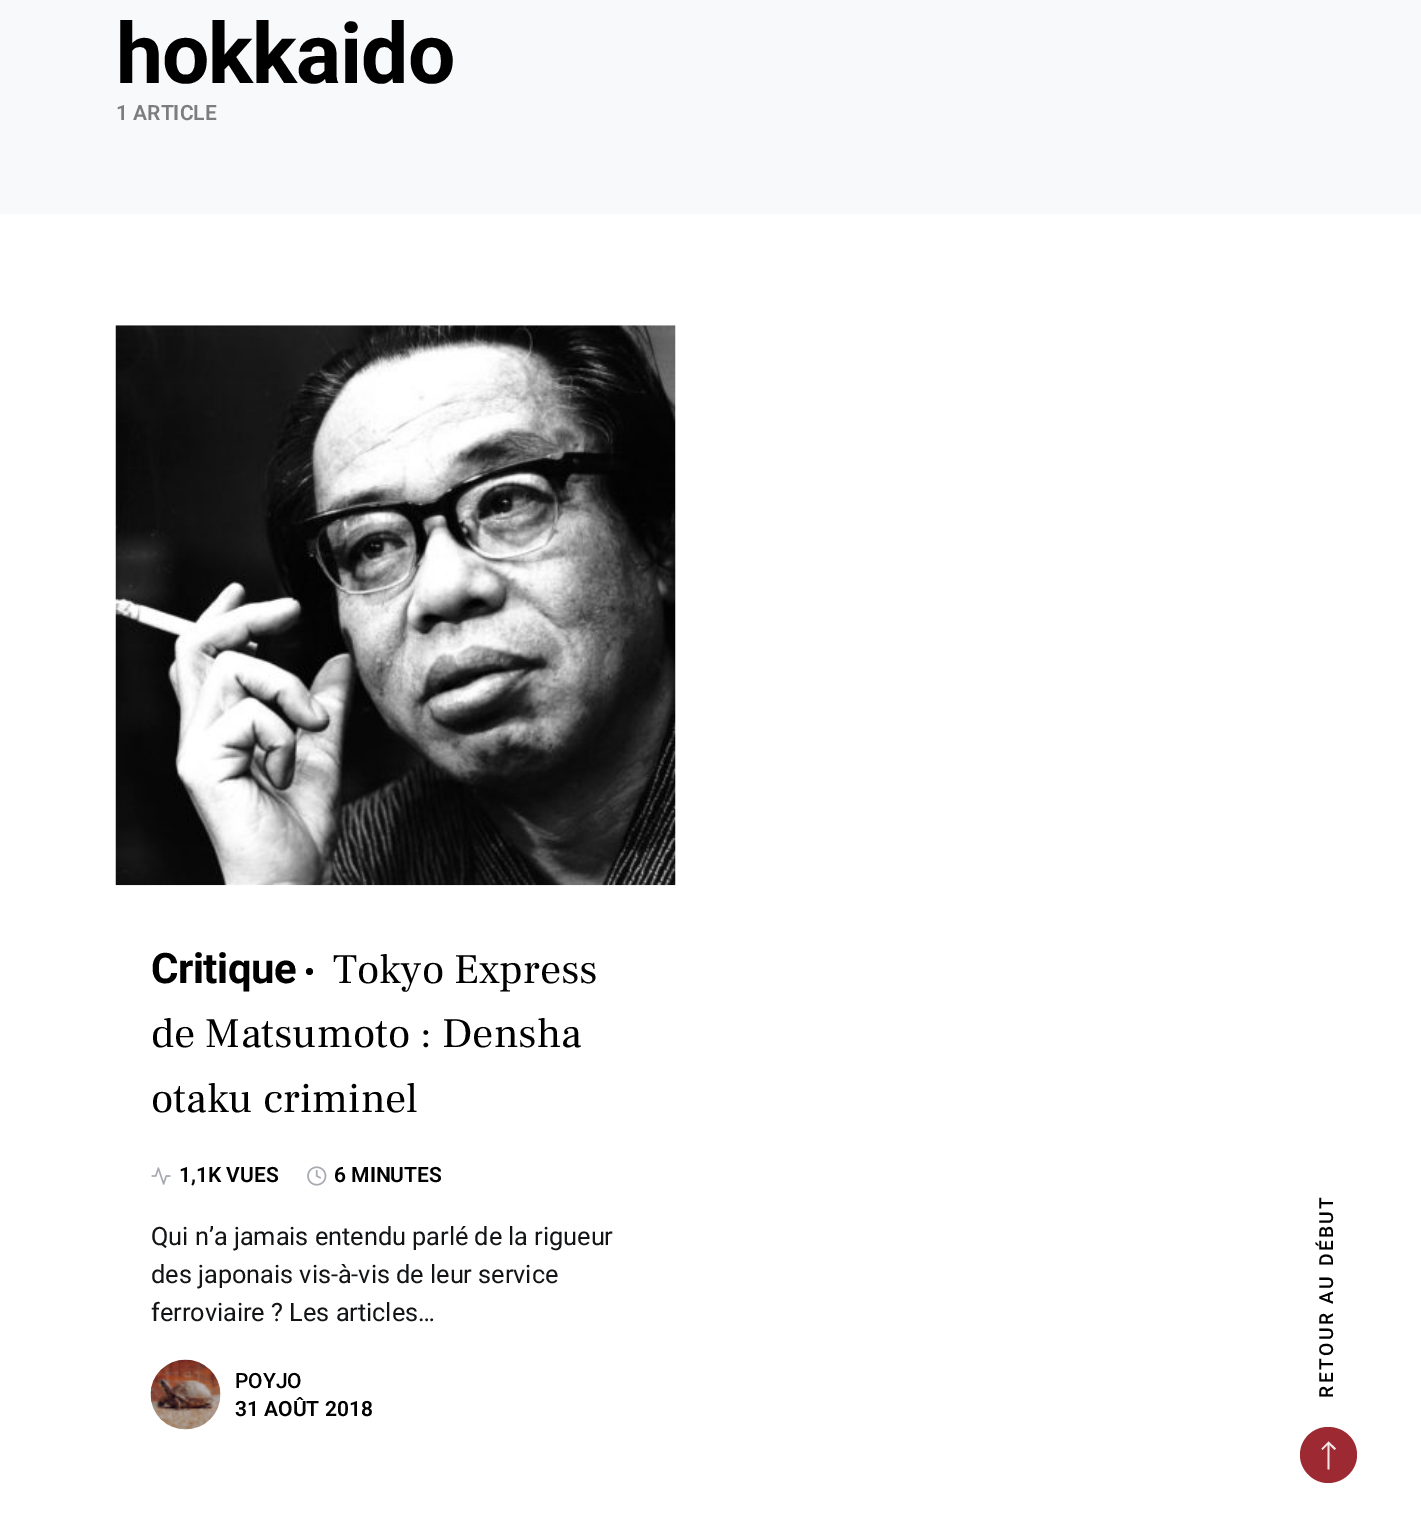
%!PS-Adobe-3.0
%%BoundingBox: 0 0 1421 1538
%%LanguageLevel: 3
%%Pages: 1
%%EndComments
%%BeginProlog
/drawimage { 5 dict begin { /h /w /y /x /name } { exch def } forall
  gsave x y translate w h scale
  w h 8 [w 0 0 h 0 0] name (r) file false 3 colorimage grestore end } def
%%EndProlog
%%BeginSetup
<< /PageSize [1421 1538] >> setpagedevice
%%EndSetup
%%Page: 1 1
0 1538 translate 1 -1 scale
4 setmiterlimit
1 setgray
0 0 1421 1538 rectfill
0.973 0.976 0.98 setrgbcolor
0 0 1421 214 rectfill
(images/1.raw) 115 325 561 561 drawimage
0.008 setgray
newpath 309.5 971.5 3.5 0 360 arc closepath fill
(images/2.raw) 151 1167 20 18 drawimage
(images/3.raw) 307 1166 20 20 drawimage
(images/4.raw) 150 1359 71 71 drawimage
0.616 0.161 0.2 setrgbcolor
newpath 1300 1455 moveto 1300 1439 1313 1427 1328 1427 curveto 1344 1427 1357 1439 1357 1455 curveto 1357 1470 1344 1483 1328 1483 curveto 1313 1483 1300 1470 1300 1455 curveto closepath fill
0.953 0.894 0.902 setrgbcolor
newpath 1329.5 1469.5 moveto 1329.5 1445 lineto 1334.5 1450 lineto 1336 1448.5 lineto 1328.5 1441.5 lineto 1321.5 1448.5 lineto 1322.5 1450 lineto 1327.5 1445 lineto 1327.5 1469.5 lineto closepath fill
/Roboto-Bold [84 0 0 -84 0 0] selectfont
0 setgray
116 83 moveto -1 0 (hokkaido) ashow
/Roboto-SemiBold [21 0 0 -21 0 0] selectfont
0.486 0.49 0.49 setrgbcolor
116 120 moveto (1 ARTICLE) show
/Roboto-Bold [42 0 0 -42 0 0] selectfont
0 setgray
151 983 moveto -0.5 0 (Critique) ashow
/FrankRuhlLibre-Regular [42 0 0 -42 0 0] selectfont
333 983 moveto (Tokyo Express) show
151 1047 moveto (de Matsumoto : Densha) show
151 1112 moveto (otaku criminel) show
/Roboto-SemiBold [21 0 0 -21 0 0] selectfont
179 1182 moveto (1,1K VUES) show
334 1182 moveto (6 MINUTES) show
/Roboto-Regular [25.25 0 0 -25.25 0 0] selectfont
0.071 0.078 0.086 setrgbcolor
151 1245 moveto (Qui n’a jamais entendu parlé de la rigueur) show
151 1283 moveto (des japonais vis-à-vis de leur service) show
151 1321 moveto (ferroviaire ? Les articles…) show
/Roboto-Medium [21 0 0 -21 0 0] selectfont
0 setgray
235 1388 moveto (POYJO) show
/Roboto-SemiBold [21 0 0 -21 0 0] selectfont
235 1416 moveto (31 AOÛT 2018) show
/Roboto-Medium [19.25 0 0 -19.25 0 0] selectfont
gsave 1333 1398 translate -90 rotate 0 0 moveto 2.4 0 (RETOUR AU DÉBUT) ashow grestore
showpage
%%EOF
